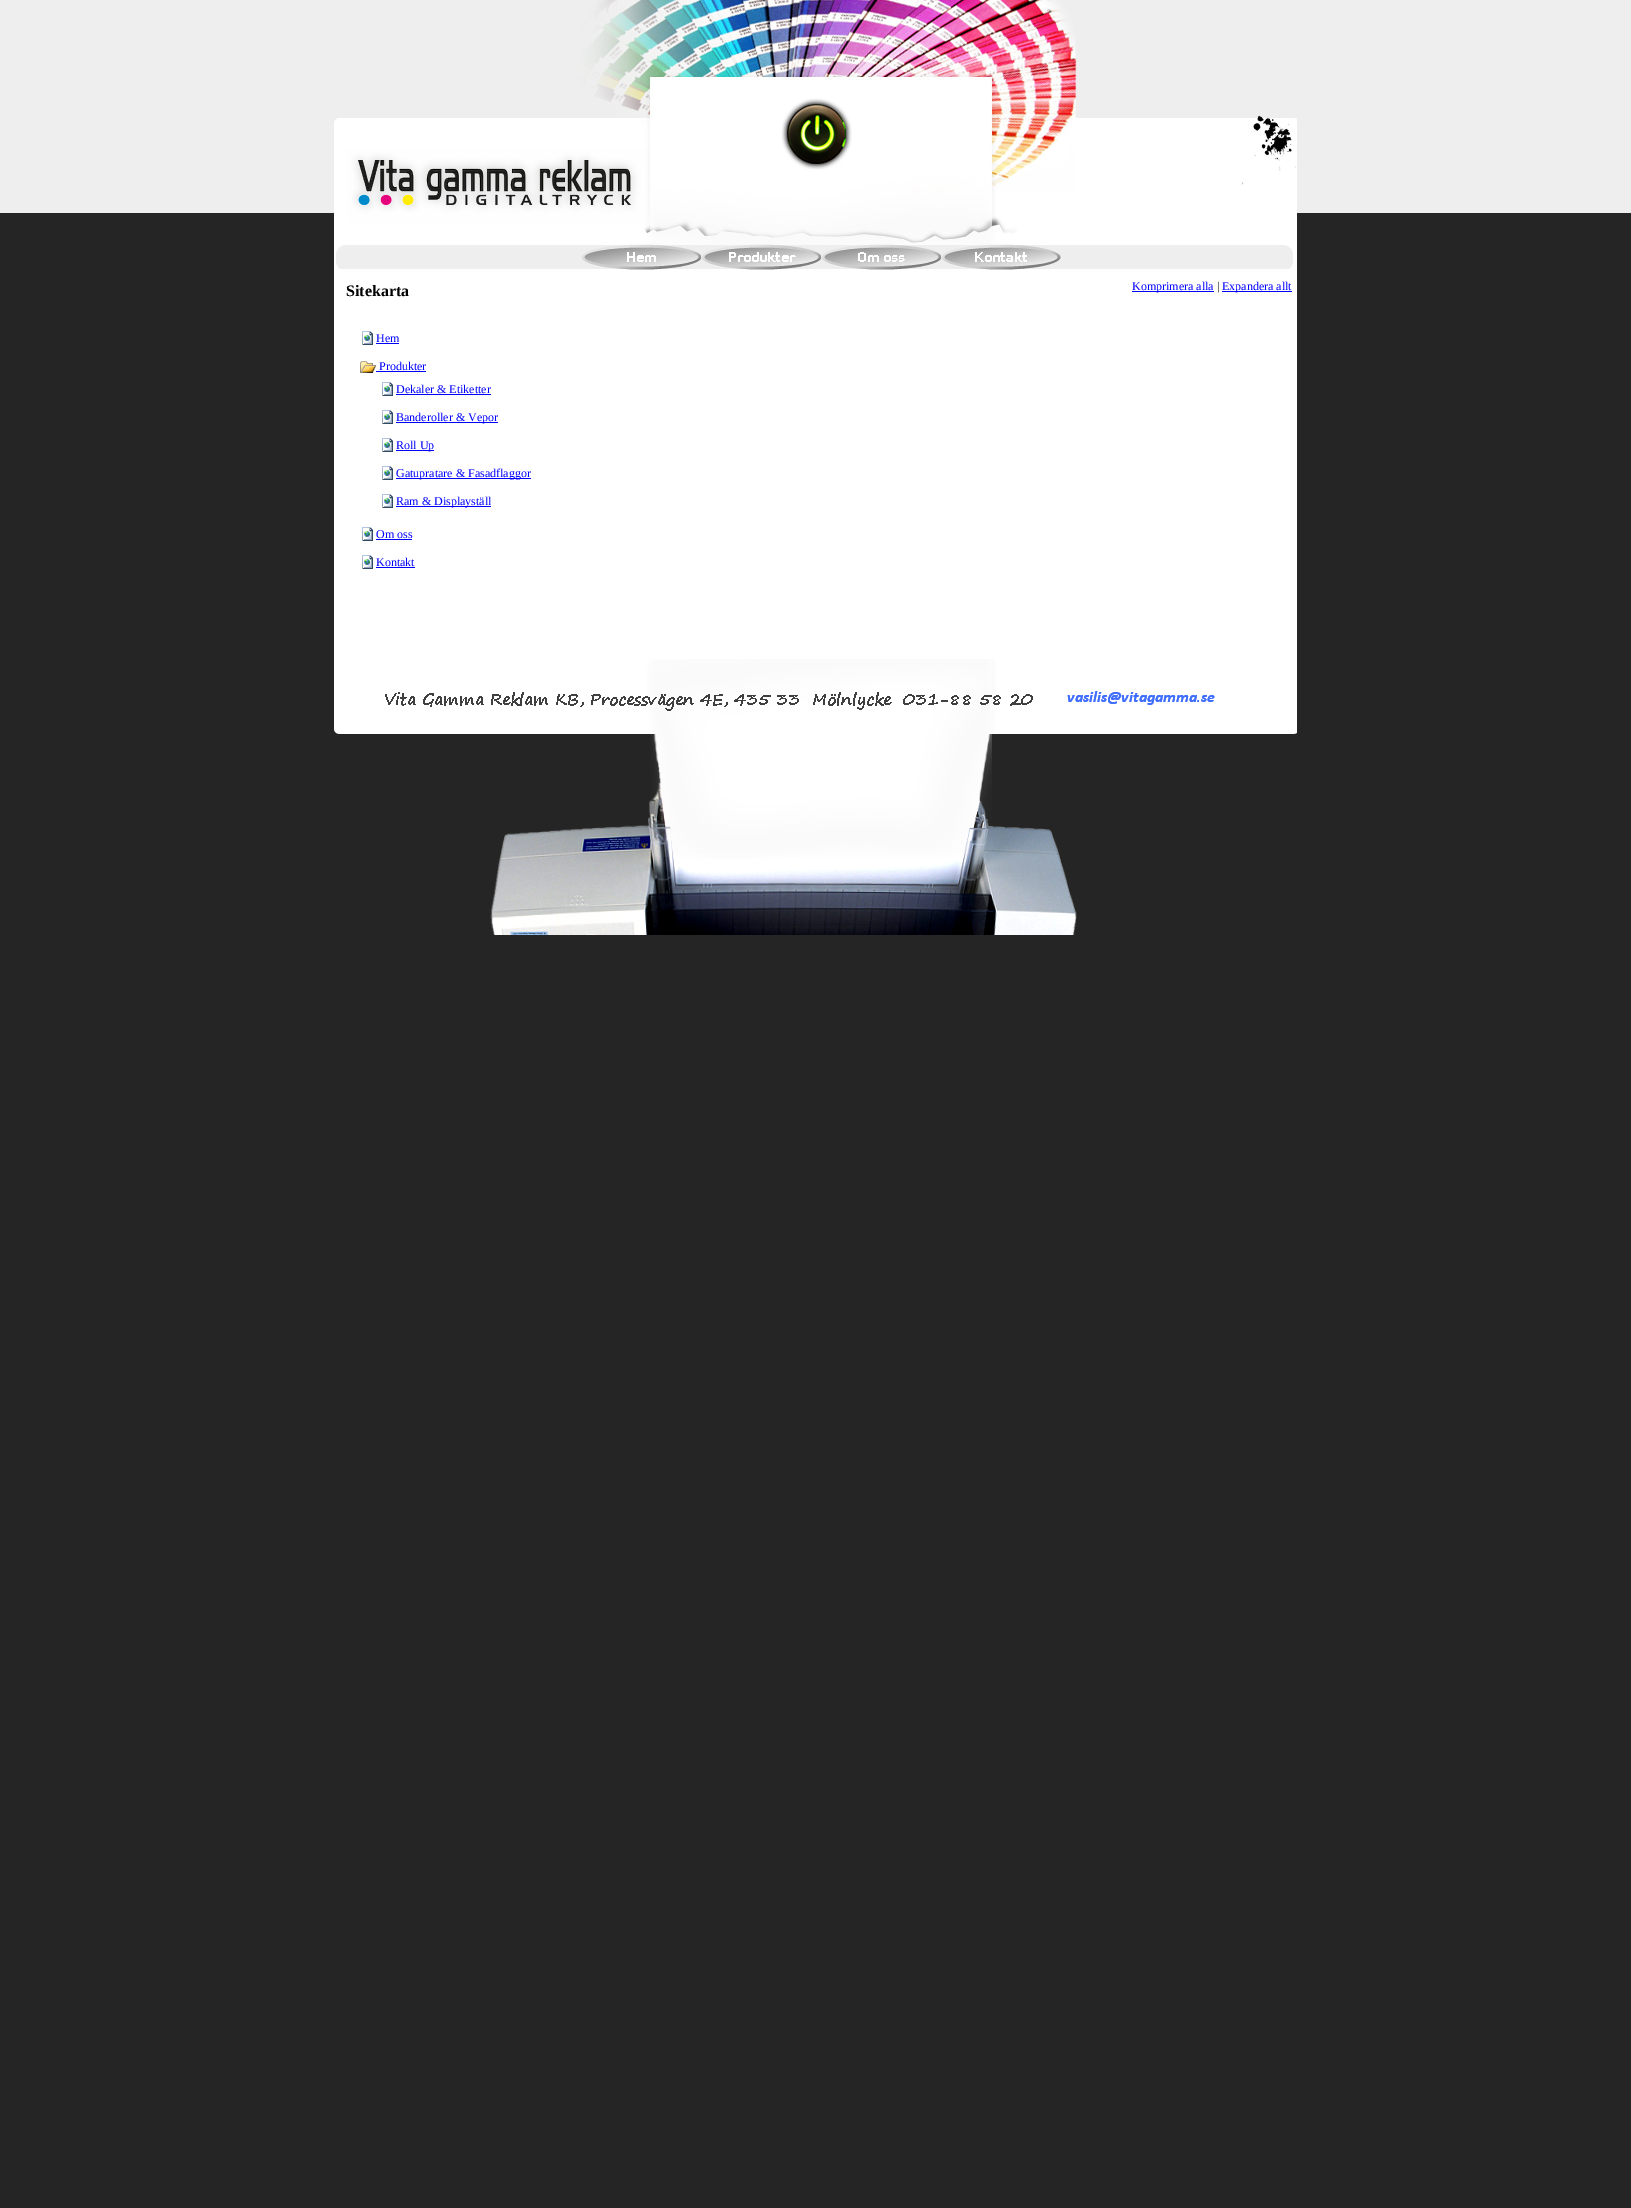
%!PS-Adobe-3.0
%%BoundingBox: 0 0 1631 2208
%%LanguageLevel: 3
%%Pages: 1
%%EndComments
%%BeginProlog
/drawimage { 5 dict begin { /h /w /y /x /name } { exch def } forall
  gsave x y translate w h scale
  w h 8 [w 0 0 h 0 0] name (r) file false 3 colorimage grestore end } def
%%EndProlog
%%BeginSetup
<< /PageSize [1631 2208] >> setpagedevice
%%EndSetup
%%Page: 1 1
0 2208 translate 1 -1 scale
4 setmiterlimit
1 setgray
0 0 1631 2208 rectfill
(images/1.raw) 0 0 1631 2208 drawimage
(images/2.raw) 334 0 963 244 drawimage
(images/3.raw) 334 244 963 25 drawimage
334 269 963 390 rectfill
(images/4.raw) 581 244 120 26 drawimage
(images/5.raw) 701 244 120 26 drawimage
(images/6.raw) 821 244 120 26 drawimage
(images/7.raw) 941 244 120 26 drawimage
0 0 1 setrgbcolor
1132 291 82 1 rectfill
1222 291 70 1 rectfill
(images/8.raw) 362 331 11 14 drawimage
376 343 23 1 rectfill
(images/9.raw) 360 361 16 12 drawimage
376 371 50 1 rectfill
(images/8.raw) 382 382 11 14 drawimage
396 394 95 1 rectfill
(images/8.raw) 382 410 11 14 drawimage
396 422 102 1 rectfill
(images/8.raw) 382 438 11 14 drawimage
396 450 38 1 rectfill
(images/8.raw) 382 466 11 14 drawimage
396 478 135 1 rectfill
(images/8.raw) 382 494 11 14 drawimage
396 506 95 1 rectfill
(images/8.raw) 362 527 11 14 drawimage
376 539 36 1 rectfill
(images/8.raw) 362 555 11 14 drawimage
376 567 39 1 rectfill
(images/10.raw) 334 659 963 276 drawimage
/LiberationSerif-Bold [16 0 0 -16 0 0] selectfont
0 setgray
346 296 moveto (Sitekarta) show
/LiberationSerif-Regular [12 0 0 -12 0 0] selectfont
0 0 1 setrgbcolor
1132 290 moveto (Komprimera alla) show
0 setgray
1217 290 moveto (|) show
0 0 1 setrgbcolor
1222 290 moveto (Expandera allt) show
376 342 moveto (Hem) show
379 370 moveto (Produkter) show
396 393 moveto (Dekaler & Etiketter) show
396 421 moveto (Banderoller & Vepor) show
396 449 moveto (Roll Up) show
396 477 moveto (Gatupratare & Fasadflaggor) show
396 505 moveto (Ram & Displayställ) show
376 538 moveto (Om oss) show
376 566 moveto (Kontakt) show
showpage
%%EOF
